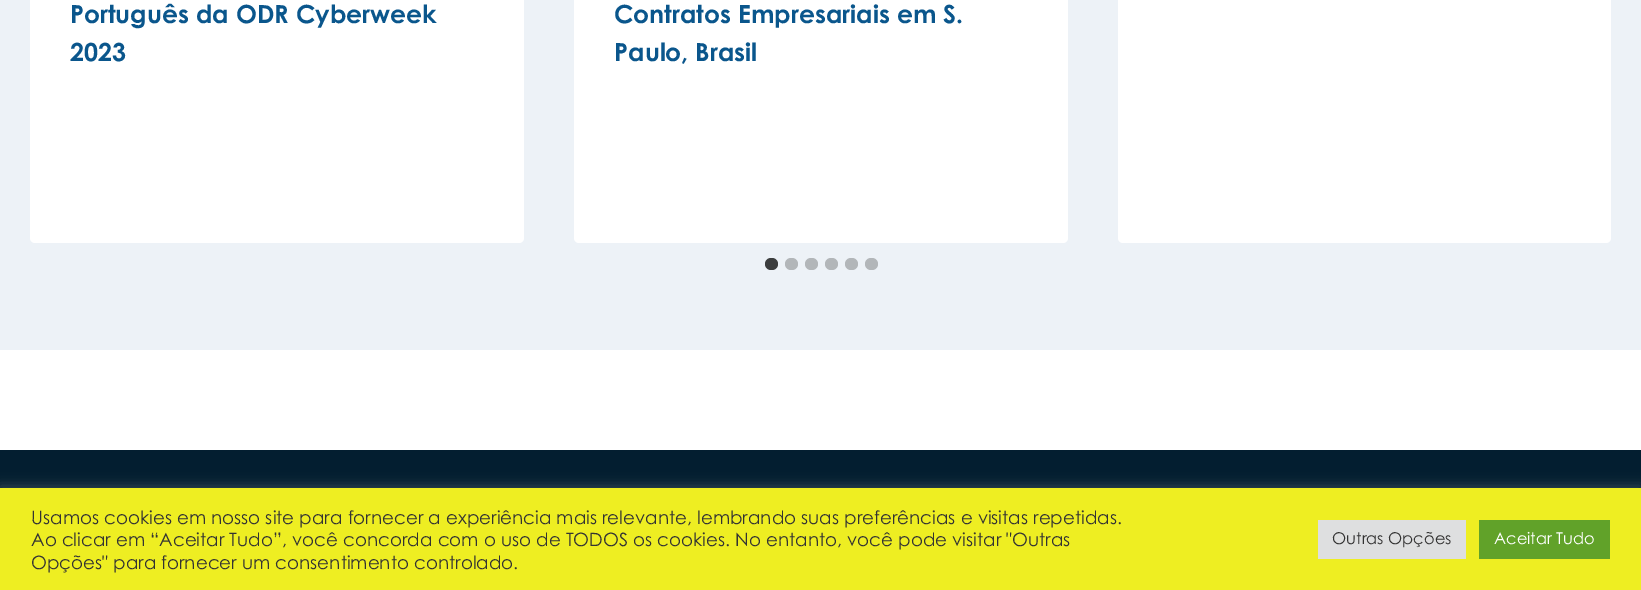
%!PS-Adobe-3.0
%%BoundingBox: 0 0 1641 590
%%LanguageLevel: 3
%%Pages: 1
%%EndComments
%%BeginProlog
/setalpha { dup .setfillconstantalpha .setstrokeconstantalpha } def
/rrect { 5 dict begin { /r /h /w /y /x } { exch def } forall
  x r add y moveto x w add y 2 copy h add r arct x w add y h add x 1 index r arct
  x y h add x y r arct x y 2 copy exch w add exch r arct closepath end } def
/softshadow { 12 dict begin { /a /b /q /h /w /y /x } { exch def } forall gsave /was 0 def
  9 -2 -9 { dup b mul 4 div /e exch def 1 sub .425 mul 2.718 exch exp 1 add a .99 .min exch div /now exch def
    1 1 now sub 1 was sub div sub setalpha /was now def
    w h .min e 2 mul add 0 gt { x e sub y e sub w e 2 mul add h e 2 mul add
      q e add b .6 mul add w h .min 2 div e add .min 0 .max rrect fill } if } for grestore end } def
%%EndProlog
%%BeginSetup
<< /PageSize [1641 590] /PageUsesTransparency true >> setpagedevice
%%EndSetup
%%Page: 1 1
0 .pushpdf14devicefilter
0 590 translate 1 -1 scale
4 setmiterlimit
1 setgray
0 0 1641 590 rectfill
0.929 0.949 0.969 setrgbcolor
0 0 1641 350 rectfill
1 setgray
30 -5 494 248 5 rrect fill
574 -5 494 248 5 rrect fill
1118 -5 493 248 5 rrect fill
0.231 0.239 0.243 setrgbcolor
765 258 13 12 6 rrect fill
0.698 0.714 0.725 setrgbcolor
785 258 13 12 6 rrect fill
805 258 13 12 6 rrect fill
825 258 13 12 6 rrect fill
845 258 13 12 6 rrect fill
865 258 13 12 6 rrect fill
0.012 0.118 0.188 setrgbcolor
0 450 1641 38 rectfill
0.675 0.671 0.671 setrgbcolor
0 486 1641 103 0 6 0.3 softshadow
0.933 0.933 0.133 setrgbcolor
0 488 1641 102 rectfill
0.871 0.875 0.878 setrgbcolor
1318 520 148 39 rectfill
0.38 0.635 0.161 setrgbcolor
1479 520 131 39 rectfill
/CenturyGothic-Bold [25 0 0 -25 0 0] selectfont
0.039 0.337 0.549 setrgbcolor
70 23 moveto (Português da ODR Cyberweek) show
70 61 moveto (2023) show
614 23 moveto (Contratos Empresariais em S.) show
614 61 moveto (Paulo, Brasil) show
/CenturyGothic-Regular [18.33 0 0 -18.33 0 0] selectfont
0.2 setgray
31 524 moveto (Usamos cookies em nosso site para fornecer a experiência mais relevante, lembrando suas preferências e visitas repetidas.) show
31 546 moveto (Ao clicar em “Aceitar Tudo”, você concorda com o uso de TODOS os cookies. No entanto, você pode visitar "Outras) show
31 569 moveto (Opções" para fornecer um consentimento controlado.) show
/CenturyGothic-Regular [16.25 0 0 -16.25 0 0] selectfont
1332 544 moveto (Outras Opções) show
1 setgray
1494 544 moveto (Aceitar Tudo) show
.poppdf14devicefilter showpage
%%EOF
